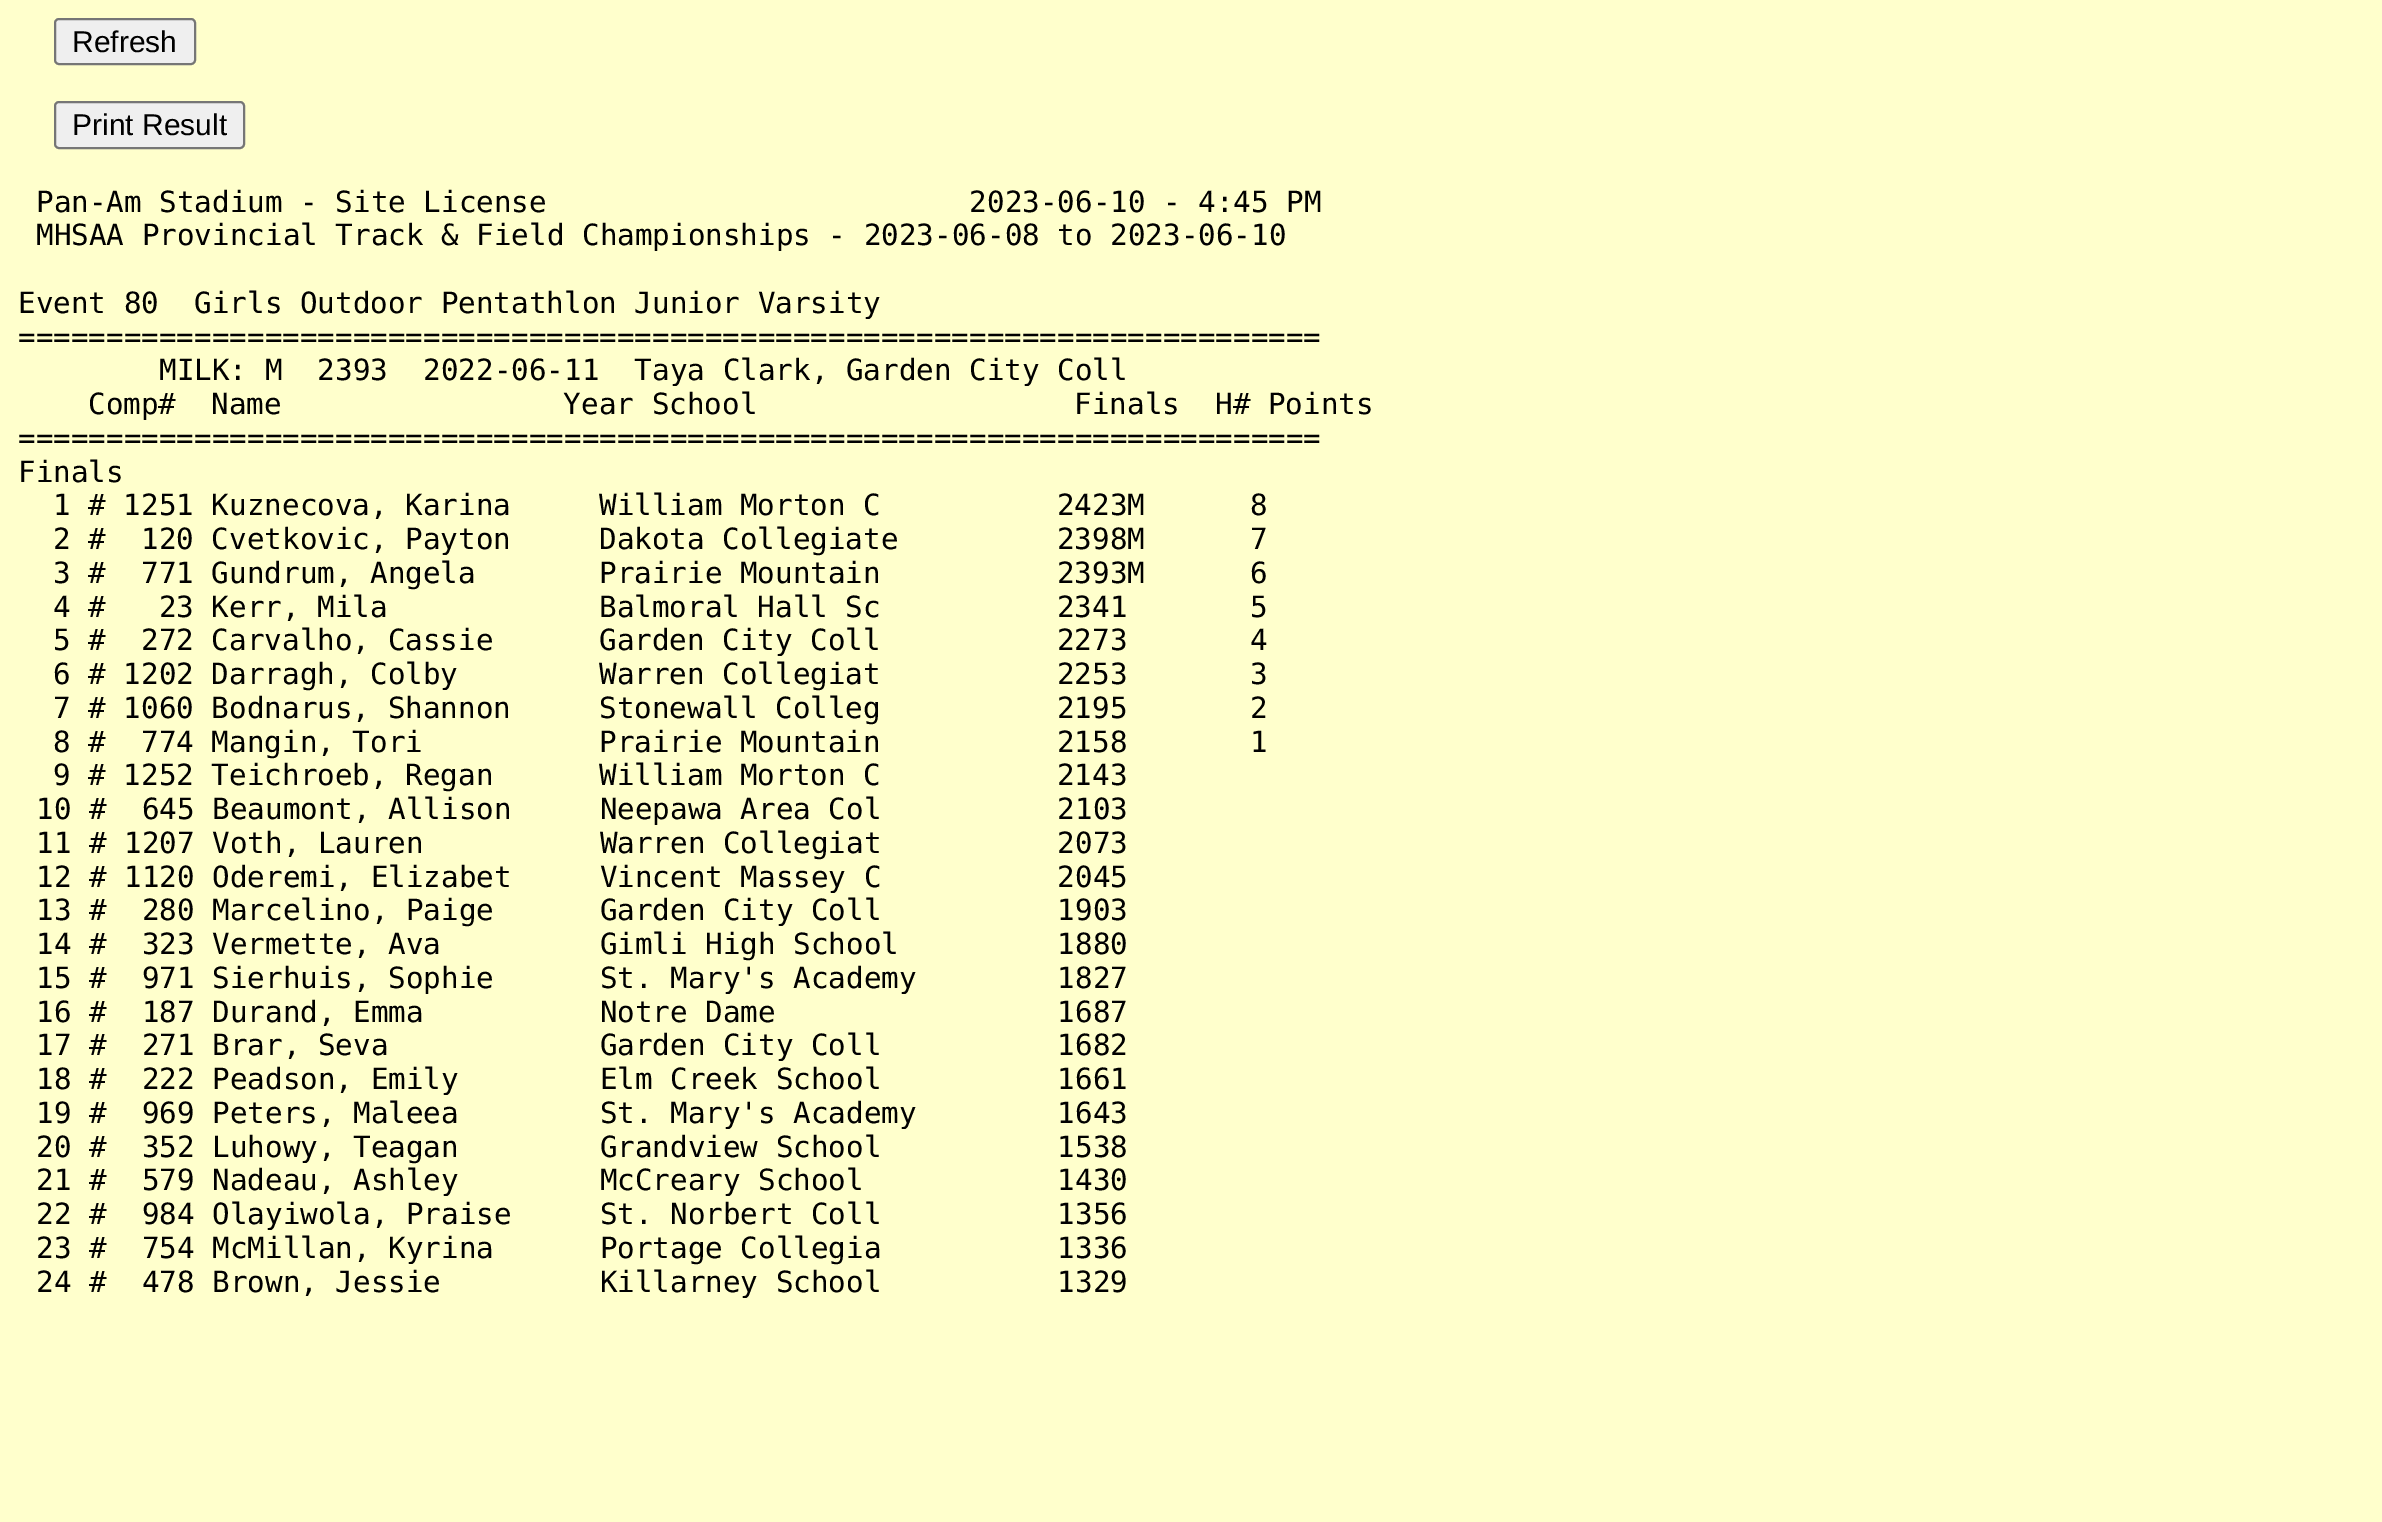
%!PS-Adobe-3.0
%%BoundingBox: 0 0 2382 1522
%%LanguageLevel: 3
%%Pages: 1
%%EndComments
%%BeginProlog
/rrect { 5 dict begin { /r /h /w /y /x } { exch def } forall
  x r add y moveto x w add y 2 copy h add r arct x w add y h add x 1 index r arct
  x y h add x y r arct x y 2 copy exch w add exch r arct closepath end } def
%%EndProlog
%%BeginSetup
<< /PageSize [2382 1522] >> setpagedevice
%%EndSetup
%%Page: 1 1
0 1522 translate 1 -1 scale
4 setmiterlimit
1 1 0.8 setrgbcolor
0 0 2382 1522 rectfill
0.937 setgray
55 19 140 45 4 rrect gsave fill grestore
0.463 setgray
2 setlinewidth
stroke
0.937 setgray
55 102 189 46 4 rrect gsave fill grestore
0.463 setgray
stroke
/LiberationSans-Regular [30 0 0 -30 0 0] selectfont
0 setgray
72 52 moveto (Refresh) show
72 135 moveto (Print Result) show
/DejaVuSansMono-Regular [29.25 0 0 -29.25 0 0] selectfont
36 212 moveto (Pan-Am Stadium - Site License                        2023-06-10 - 4:45 PM) show
36 245 moveto (MHSAA Provincial Track & Field Championships - 2023-06-08 to 2023-06-10) show
18 313 moveto (Event 80  Girls Outdoor Pentathlon Junior Varsity) show
18 347 moveto (==========================================================================) show
159 380 moveto (MILK: M  2393  2022-06-11  Taya Clark, Garden City Coll) show
88 414 moveto (Comp#  Name                Year School                  Finals  H# Points) show
18 448 moveto (==========================================================================) show
18 482 moveto (Finals) show
53 515 moveto (1 # 1251 Kuznecova, Karina     William Morton C          2423M      8) show
53 549 moveto (2 #  120 Cvetkovic, Payton     Dakota Collegiate         2398M      7) show
53 583 moveto (3 #  771 Gundrum, Angela       Prairie Mountain          2393M      6) show
53 617 moveto (4 #   23 Kerr, Mila            Balmoral Hall Sc          2341       5) show
53 650 moveto (5 #  272 Carvalho, Cassie      Garden City Coll          2273       4) show
53 684 moveto (6 # 1202 Darragh, Colby        Warren Collegiat          2253       3) show
53 718 moveto (7 # 1060 Bodnarus, Shannon     Stonewall Colleg          2195       2) show
53 752 moveto (8 #  774 Mangin, Tori          Prairie Mountain          2158       1) show
53 785 moveto (9 # 1252 Teichroeb, Regan      William Morton C          2143) show
36 819 moveto (10 #  645 Beaumont, Allison     Neepawa Area Col          2103) show
36 853 moveto (11 # 1207 Voth, Lauren          Warren Collegiat          2073) show
36 887 moveto (12 # 1120 Oderemi, Elizabet     Vincent Massey C          2045) show
36 920 moveto (13 #  280 Marcelino, Paige      Garden City Coll          1903) show
36 954 moveto (14 #  323 Vermette, Ava         Gimli High School         1880) show
36 988 moveto (15 #  971 Sierhuis, Sophie      St. Mary's Academy        1827) show
36 1022 moveto (16 #  187 Durand, Emma          Notre Dame                1687) show
36 1055 moveto (17 #  271 Brar, Seva            Garden City Coll          1682) show
36 1089 moveto (18 #  222 Peadson, Emily        Elm Creek School          1661) show
36 1123 moveto (19 #  969 Peters, Maleea        St. Mary's Academy        1643) show
36 1157 moveto (20 #  352 Luhowy, Teagan        Grandview School          1538) show
36 1190 moveto (21 #  579 Nadeau, Ashley        McCreary School           1430) show
36 1224 moveto (22 #  984 Olayiwola, Praise     St. Norbert Coll          1356) show
36 1258 moveto (23 #  754 McMillan, Kyrina      Portage Collegia          1336) show
36 1292 moveto (24 #  478 Brown, Jessie         Killarney School          1329) show
showpage
%%EOF
